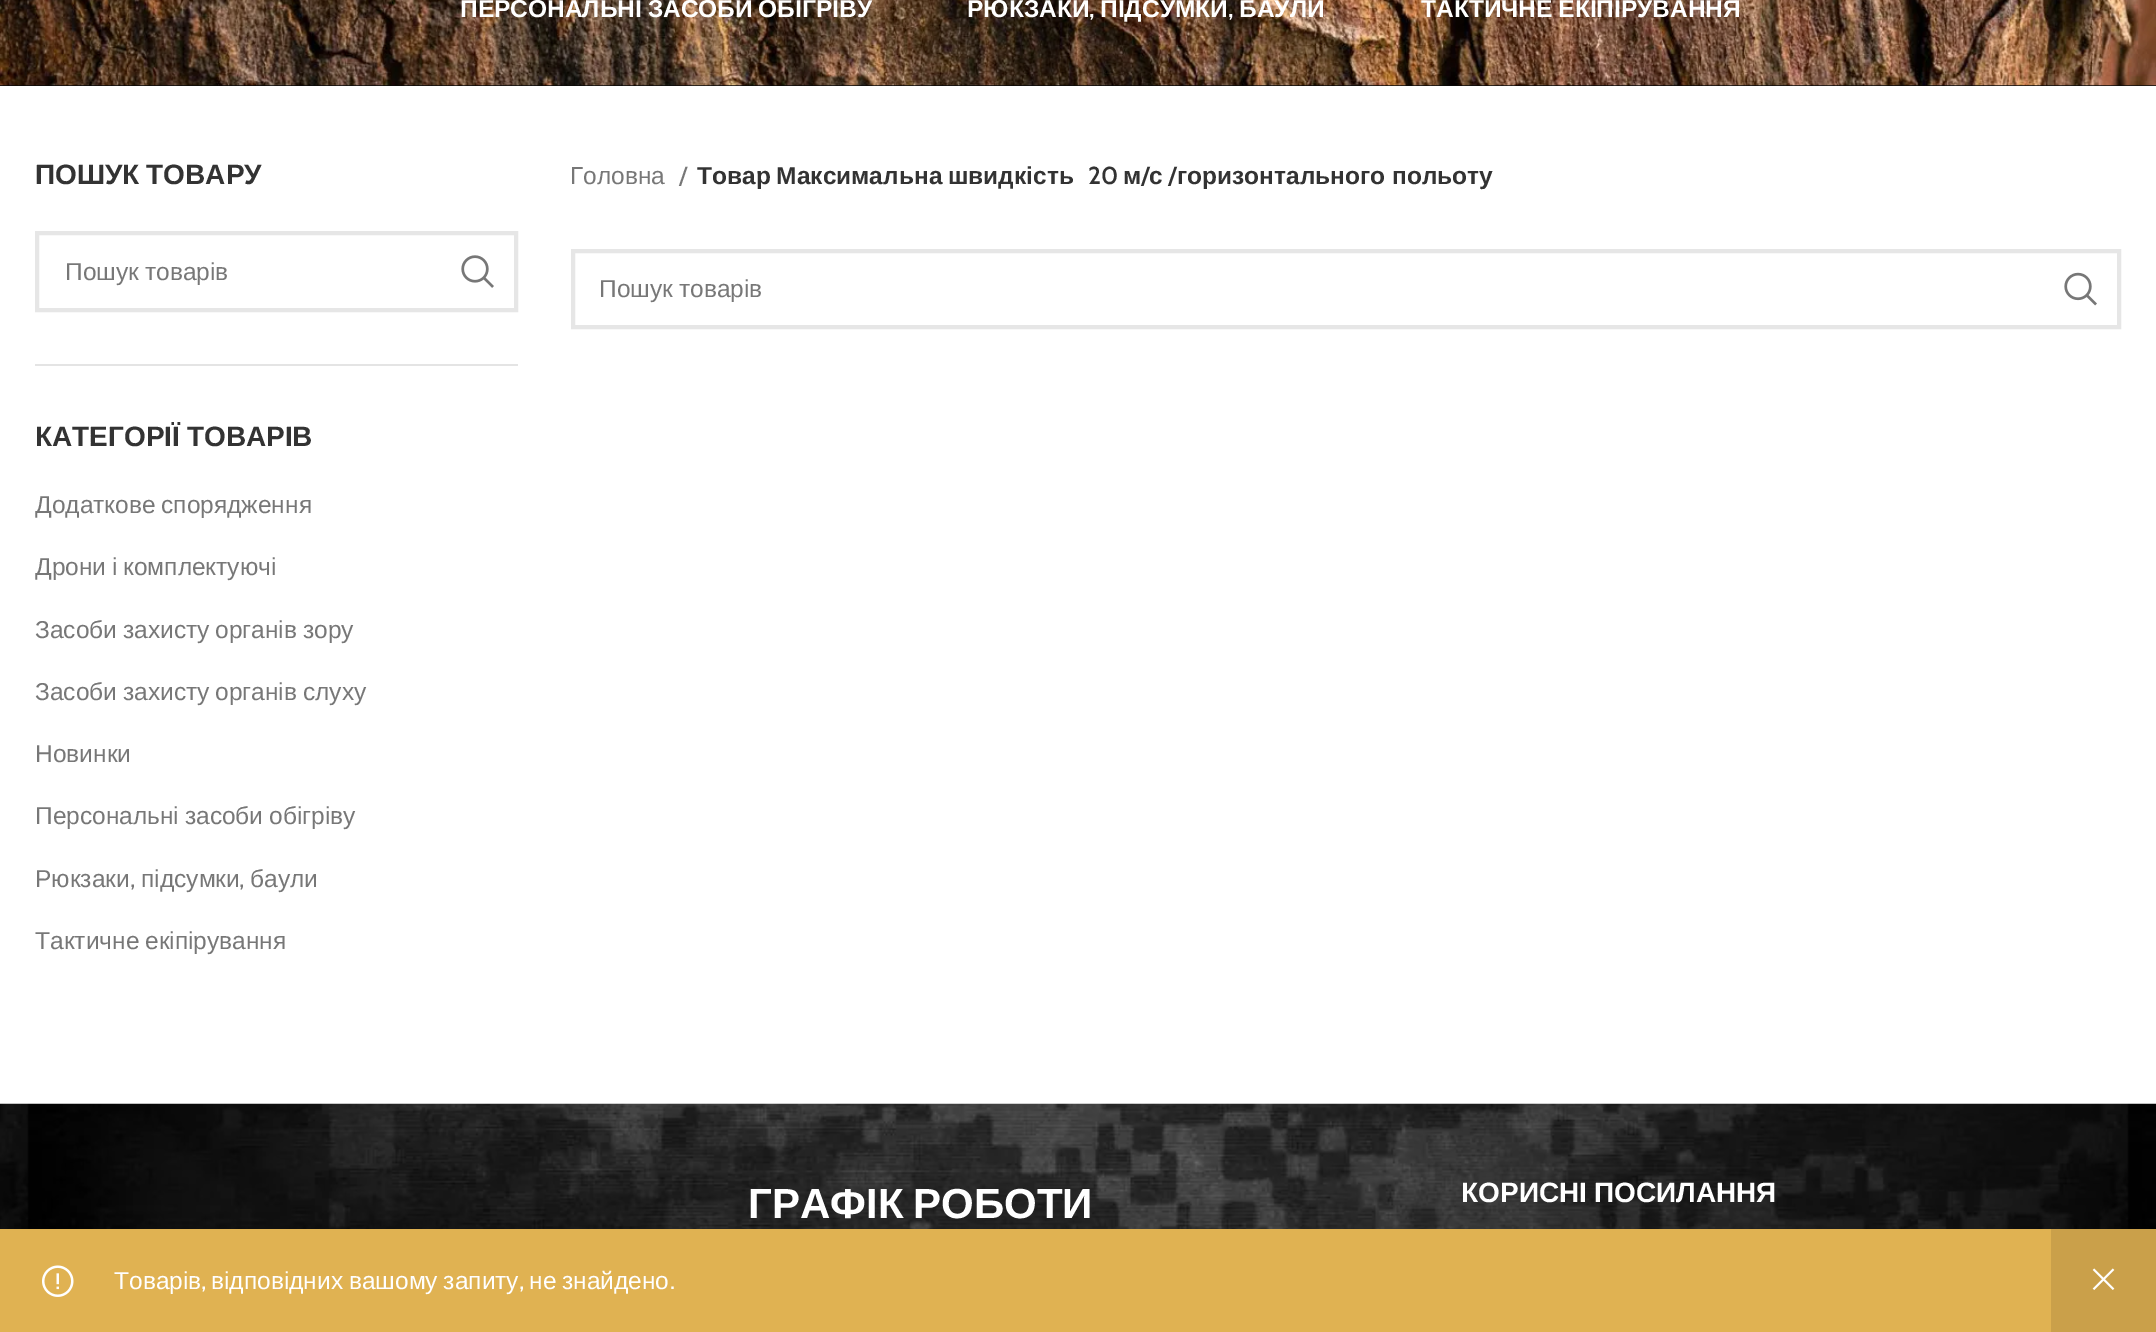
%!PS-Adobe-3.0
%%BoundingBox: 0 0 2156 1332
%%LanguageLevel: 3
%%Pages: 1
%%EndComments
%%BeginProlog
/drawimage { 5 dict begin { /h /w /y /x /name } { exch def } forall
  gsave x y translate w h scale
  w h 8 [w 0 0 h 0 0] name (r) file false 3 colorimage grestore end } def
%%EndProlog
%%BeginSetup
<< /PageSize [2156 1332] >> setpagedevice
%%EndSetup
%%Page: 1 1
0 1332 translate 1 -1 scale
4 setmiterlimit
1 setgray
0 0 2156 1332 rectfill
0.039 setgray
0 85 2156 1 rectfill
(images/1.raw) 0 0 2156 86 drawimage
0.894 setgray
35 364 483 2 rectfill
0.902 setgray
4 setlinewidth
37 233 479 77 rectstroke
(images/2.raw) 461 255 33 33 drawimage
573 251 1546 76 rectstroke
(images/3.raw) 2064 272 33 34 drawimage
0.878 0.698 0.322 setrgbcolor
0 1229 2051 103 rectfill
(images/4.raw) 42 1265 32 32 drawimage
0.792 0.627 0.29 setrgbcolor
2051 1229 105 103 rectfill
(images/5.raw) 2092 1268 23 22 drawimage
(images/6.raw) 0 1103 2156 126 drawimage
/LiberationSans-Bold [24.5 0 0 -24.5 0 0] selectfont
1 setgray
460 17 moveto -1 0 32 (ПЕРСОНАЛЬНІ ЗАСОБИ ОБІГРІВУ) widthshow
967 17 moveto (РЮКЗАКИ) show
/Cabin-SemiBold [24.5 0 0 -24.5 0 0] selectfont
1089 17 moveto (,) show
/LiberationSans-Bold [24.5 0 0 -24.5 0 0] selectfont
1100 17 moveto (ПІДСУМКИ) show
/Cabin-SemiBold [24.5 0 0 -24.5 0 0] selectfont
1228 17 moveto (,) show
/LiberationSans-Bold [24.5 0 0 -24.5 0 0] selectfont
1239 17 moveto (БАУЛИ) show
1421 17 moveto -1 0 32 (ТАКТИЧНЕ ЕКІПІРУВАННЯ) widthshow
/LiberationSans-Bold [28 0 0 -28 0 0] selectfont
0.2 setgray
35 184 moveto -1 0 32 (ПОШУК ТОВАРУ) widthshow
/LiberationSans-Regular [24.5 0 0 -24.5 0 0] selectfont
0.467 setgray
65 280 moveto -1 0 32 (Пошук товарів) widthshow
/LiberationSans-Bold [28 0 0 -28 0 0] selectfont
0.2 setgray
35 446 moveto -1 0 32 (КАТЕГОРІЇ ТОВАРІВ) widthshow
/LiberationSans-Regular [24.5 0 0 -24.5 0 0] selectfont
0.467 setgray
35 513 moveto -1 0 32 (Додаткове спорядження) widthshow
35 575 moveto -1 0 32 (Дрони і комплектуючі) widthshow
35 638 moveto -1 0 32 (Засоби захисту органів зору) widthshow
35 700 moveto -1 0 32 (Засоби захисту органів слуху) widthshow
35 762 moveto (Новинки) show
35 824 moveto -1 0 32 (Персональні засоби обігріву) widthshow
35 887 moveto (Рюкзаки) show
/Cabin-Regular [24.5 0 0 -24.5 0 0] selectfont
130 887 moveto (,) show
/LiberationSans-Regular [24.5 0 0 -24.5 0 0] selectfont
141 887 moveto (підсумки) show
/Cabin-Regular [24.5 0 0 -24.5 0 0] selectfont
239 887 moveto (,) show
/LiberationSans-Regular [24.5 0 0 -24.5 0 0] selectfont
250 887 moveto (баули) show
35 949 moveto -1 0 32 (Тактичне екіпірування) widthshow
570 184 moveto (Головна) show
/Cabin-Regular [24.5 0 0 -24.5 0 0] selectfont
679 184 moveto (/) show
/LiberationSans-Bold [24.5 0 0 -24.5 0 0] selectfont
0.2 setgray
697 184 moveto -1 0 32 (Товар Максимальна швидкість) widthshow
/Cabin-SemiBold [24.5 0 0 -24.5 0 0] selectfont
1088 184 moveto (20) show
/LiberationSans-Bold [24.5 0 0 -24.5 0 0] selectfont
1123 184 moveto (м) show
/Cabin-SemiBold [24.5 0 0 -24.5 0 0] selectfont
1141 184 moveto (/) show
/LiberationSans-Bold [24.5 0 0 -24.5 0 0] selectfont
1149 184 moveto (с) show
/Cabin-SemiBold [24.5 0 0 -24.5 0 0] selectfont
1168 184 moveto (/) show
/LiberationSans-Bold [24.5 0 0 -24.5 0 0] selectfont
1177 184 moveto (горизонтального польоту) show
/LiberationSans-Regular [24.5 0 0 -24.5 0 0] selectfont
0.467 setgray
599 297 moveto -1 0 32 (Пошук товарів) widthshow
1 setgray
114 1289 moveto (Товарів) show
/Cabin-Regular [24.5 0 0 -24.5 0 0] selectfont
201 1289 moveto (,) show
/LiberationSans-Regular [24.5 0 0 -24.5 0 0] selectfont
211 1289 moveto -1 0 32 (відповідних вашому запиту) widthshow
/Cabin-Regular [24.5 0 0 -24.5 0 0] selectfont
519 1289 moveto (,) show
/LiberationSans-Regular [24.5 0 0 -24.5 0 0] selectfont
529 1289 moveto -1 0 32 (не знайдено) widthshow
/Cabin-Regular [24.5 0 0 -24.5 0 0] selectfont
670 1289 moveto (.) show
/LiberationSans-Bold [42 0 0 -42 0 0] selectfont
748 1218 moveto -2 0 32 (ГРАФІК РОБОТИ) widthshow
/LiberationSans-Bold [28 0 0 -28 0 0] selectfont
1461 1202 moveto -1 0 32 (КОРИСНІ ПОСИЛАННЯ) widthshow
showpage
%%EOF
